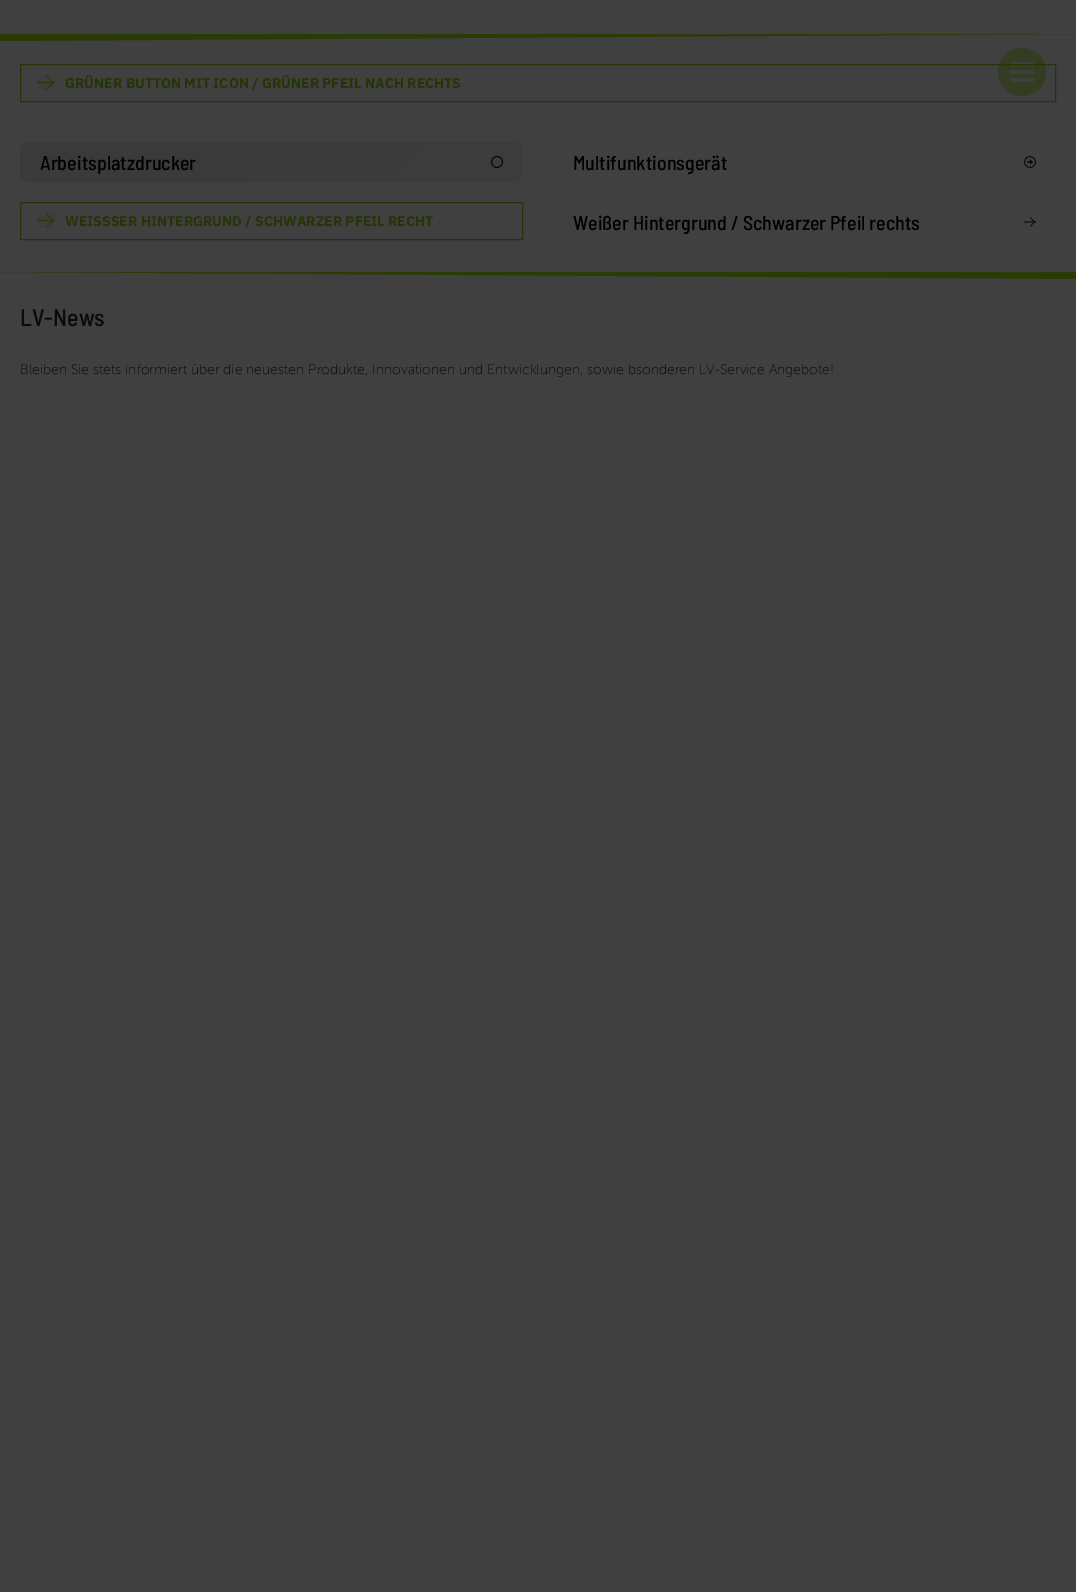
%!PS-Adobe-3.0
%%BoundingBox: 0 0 1076 1592
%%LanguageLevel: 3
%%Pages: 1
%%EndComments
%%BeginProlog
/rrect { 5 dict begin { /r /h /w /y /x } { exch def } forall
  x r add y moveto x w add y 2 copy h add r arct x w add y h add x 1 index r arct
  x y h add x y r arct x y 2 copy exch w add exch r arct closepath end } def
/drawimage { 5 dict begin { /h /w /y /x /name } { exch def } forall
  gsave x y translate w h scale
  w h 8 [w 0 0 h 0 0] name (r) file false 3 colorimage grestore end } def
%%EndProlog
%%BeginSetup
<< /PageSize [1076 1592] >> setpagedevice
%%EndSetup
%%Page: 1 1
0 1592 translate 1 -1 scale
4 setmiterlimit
0.251 setgray
0 0 1076 1592 rectfill
0.165 0.231 0.024 setrgbcolor
newpath 0 34 moveto 0 41 lineto 1076 34 lineto closepath fill
0.204 0.235 0.133 setrgbcolor
newpath 1022 72 24 0 360 arc closepath fill
0.247 setgray
1010 62 24 4 rectfill
1010 70 24 4 rectfill
1010 78 24 4 rectfill
0.145 0.208 0.02 setrgbcolor
20.5 64.5 1035 37 rectstroke
(images/1.raw) 37 75 18 15 drawimage
gsave 20 142 503 40 10 rrect clip newpath
<< /ShadingType 2 /ColorSpace /DeviceRGB /Coords [136 26 407 298] /Extend [true true] /Function << /FunctionType 2 /Domain [0 1] /C0 [0.227 0.227 0.227] /C1 [0.239 0.239 0.239] /N 1 >> >> shfill grestore
(images/2.raw) 491 156 12 12 drawimage
(images/3.raw) 1024 156 12 12 drawimage
20.5 202.5 502 37 rectstroke
(images/1.raw) 37 213 18 15 drawimage
(images/4.raw) 1024 217 12 10 drawimage
0.165 0.231 0.024 setrgbcolor
newpath 0 272 moveto 1076 279 lineto 1076 272 lineto closepath fill
/IBMPlexSans-Bold [14 0 0 -14 0 0] selectfont
0.145 0.208 0.02 setrgbcolor
65 88 moveto (GRÜNER BUTTON MIT ICON / GRÜNER PFEIL NACH RECHTS) show
/BarlowSemiCondensed-Medium [20 0 0 -20 0 0] selectfont
0 setgray
40 170 moveto (Arbeitsplatzdrucker) show
573 170 moveto (Multifunktionsgerät) show
/IBMPlexSans-Bold [14 0 0 -14 0 0] selectfont
0.145 0.208 0.02 setrgbcolor
65 226 moveto (WEISSSER HINTERGRUND / SCHWARZER PFEIL RECHT) show
/BarlowSemiCondensed-Medium [20 0 0 -20 0 0] selectfont
0 setgray
573 230 moveto (Weißer Hintergrund / Schwarzer Pfeil rechts) show
/BarlowSemiCondensed-Medium [24 0 0 -24 0 0] selectfont
0.039 setgray
20 326 moveto (LV-News) show
/MuseoSans-ExtraLight [14 0 0 -14 0 0] selectfont
20 374 moveto (Bleiben Sie stets informiert über die neuesten Produkte, Innovationen und Entwicklungen, sowie bsonderen LV-Service Angebote!) show
showpage
%%EOF
